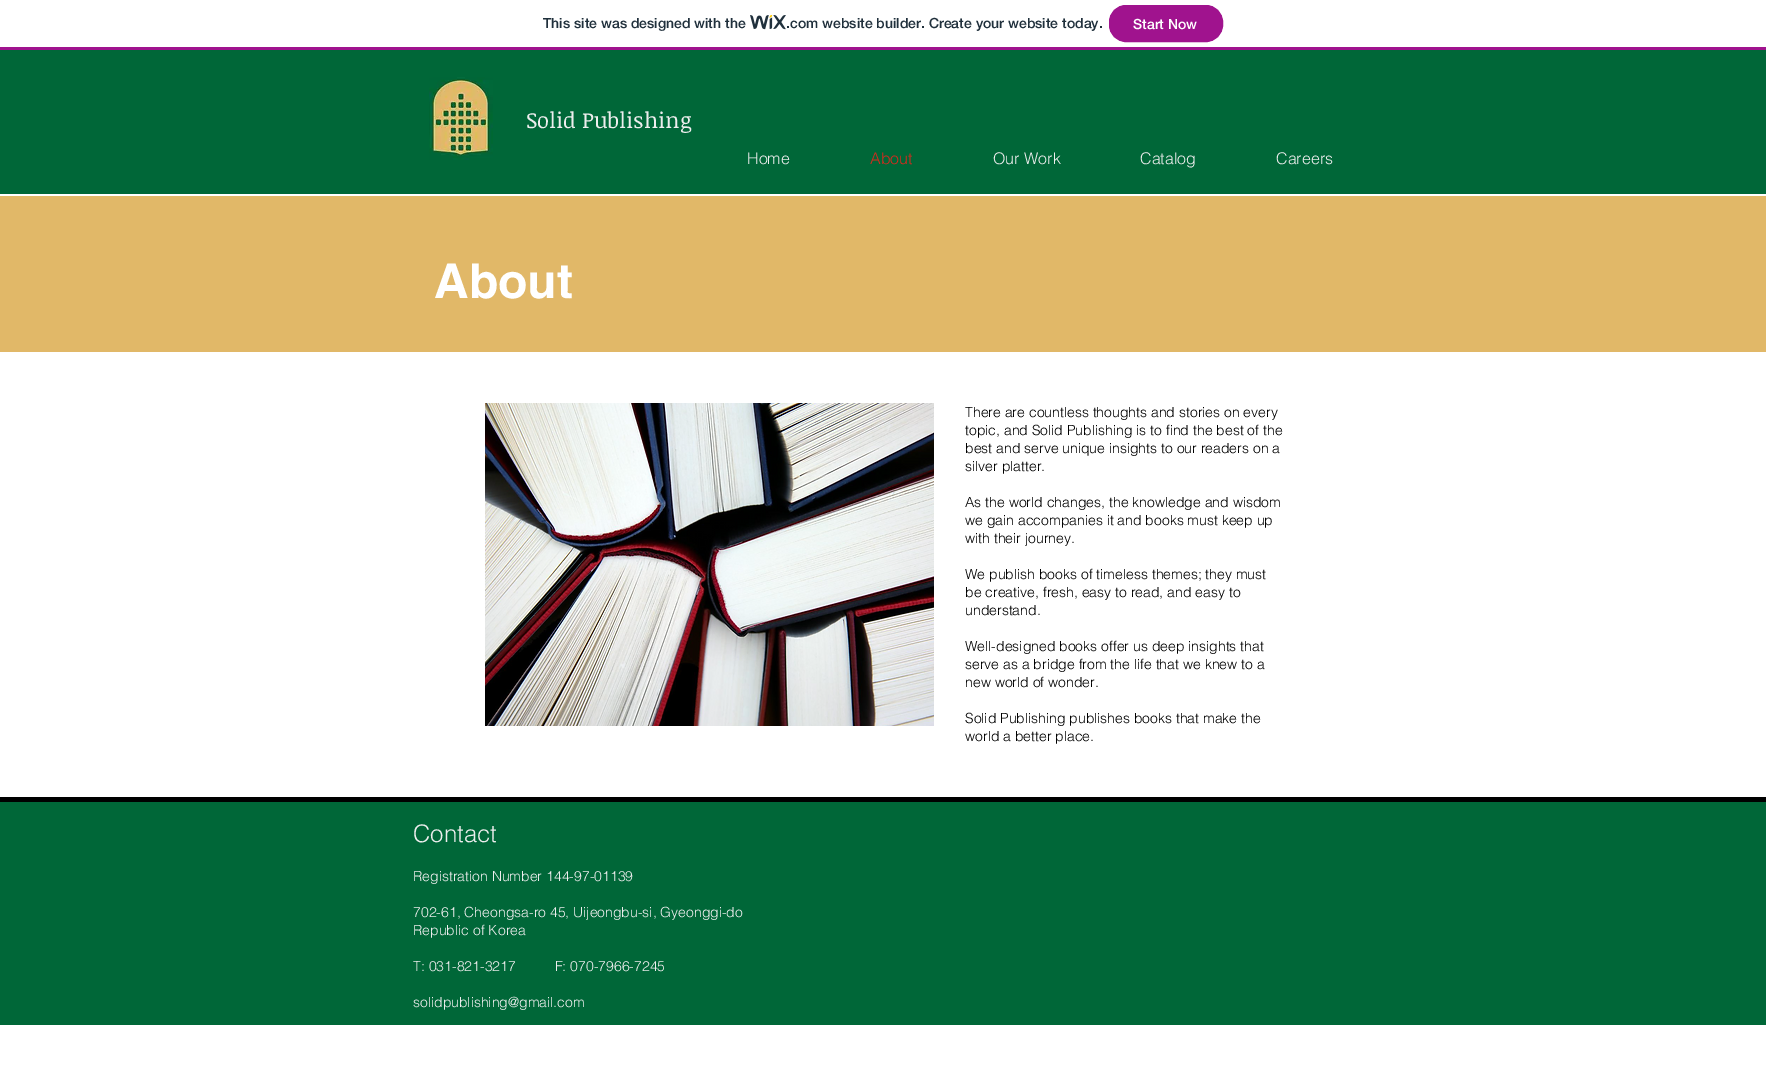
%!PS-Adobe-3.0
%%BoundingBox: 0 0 1766 1091
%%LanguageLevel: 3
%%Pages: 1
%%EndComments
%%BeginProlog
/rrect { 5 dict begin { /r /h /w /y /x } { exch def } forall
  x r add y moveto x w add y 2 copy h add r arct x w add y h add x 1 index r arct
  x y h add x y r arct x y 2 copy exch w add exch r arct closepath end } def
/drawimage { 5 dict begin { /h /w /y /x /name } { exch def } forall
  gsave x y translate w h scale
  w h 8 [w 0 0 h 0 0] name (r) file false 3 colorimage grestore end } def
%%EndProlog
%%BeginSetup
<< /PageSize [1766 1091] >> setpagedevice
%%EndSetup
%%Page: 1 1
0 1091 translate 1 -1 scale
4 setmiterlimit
1 setgray
0 0 1766 1091 rectfill
0.627 0.075 0.557 setrgbcolor
0 47 1766 3 rectfill
(images/1.raw) 750 15 36 15 drawimage
1109.5 5.5 113 36 16.5 rrect gsave fill grestore
stroke
0 0.404 0.22 setrgbcolor
0 50 1766 144 rectfill
(images/2.raw) 429 77 64 83 drawimage
0.882 0.722 0.408 setrgbcolor
0 196 1766 156 rectfill
(images/3.raw) 485 403 449 323 drawimage
0 0.404 0.22 setrgbcolor
0 802 1766 223 rectfill
0 setgray
0 797 1766 5 rectfill
/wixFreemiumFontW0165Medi-Medium [14 0 0 -14 0 0] selectfont
0.125 0.188 0.235 setrgbcolor
543 28 moveto (This site was designed with the) show
786 28 moveto (.com website builder. Create your website today.) show
1 setgray
1133 29 moveto (Start Now) show
/NoticiaText-Regular [22 0 0 -22 0 0] selectfont
0.933 setgray
526 128 moveto (Solid Publishing) show
/helvetica-Light [16 0 0 -16 0 0] selectfont
747 164 moveto (Home) show
0.835 0.169 0.118 setrgbcolor
870 164 moveto (About) show
0.933 setgray
993 164 moveto (Our Work) show
1140 164 moveto (Catalog) show
1276 164 moveto (Careers) show
/helvetica-Bold [48 0 0 -48 0 0] selectfont
1 setgray
434 298 moveto (About) show
/helvetica-Light [14 0 0 -14 0 0] selectfont
0 setgray
965 417 moveto (There are countless thoughts and stories on every) show
965 435 moveto (topic, and Solid Publishing is to find the best of the) show
965 453 moveto (best and serve unique insights to our readers on a) show
965 471 moveto (silver platter.) show
965 507 moveto (As the world changes, the knowledge and wisdom) show
965 525 moveto (we gain accompanies it and books must keep up) show
965 543 moveto (with their journey.) show
965 579 moveto (We publish books of timeless themes; they must) show
965 597 moveto (be creative, fresh, easy to read, and easy to) show
965 615 moveto (understand.) show
965 651 moveto (Well-designed books offer us deep insights that) show
965 669 moveto (serve as a bridge from the life that we knew to a) show
965 687 moveto (new world of wonder.) show
965 723 moveto (Solid Publishing publishes books that make the) show
965 741 moveto (world a better place.) show
/helvetica-Light [24 0 0 -24 0 0] selectfont
0.933 setgray
413 842 moveto (Contact) show
/helvetica-Light [14 0 0 -14 0 0] selectfont
413 881 moveto (Registration Number 144-97-01139) show
413 917 moveto (702-61, Cheongsa-ro 45, Uijeongbu-si, Gyeonggi-do) show
413 935 moveto (Republic of Korea) show
413 971 moveto (T: 031-821-3217          F: 070-7966-7245) show
413 1007 moveto (solidpublishing@gmail.com) show
showpage
%%EOF
